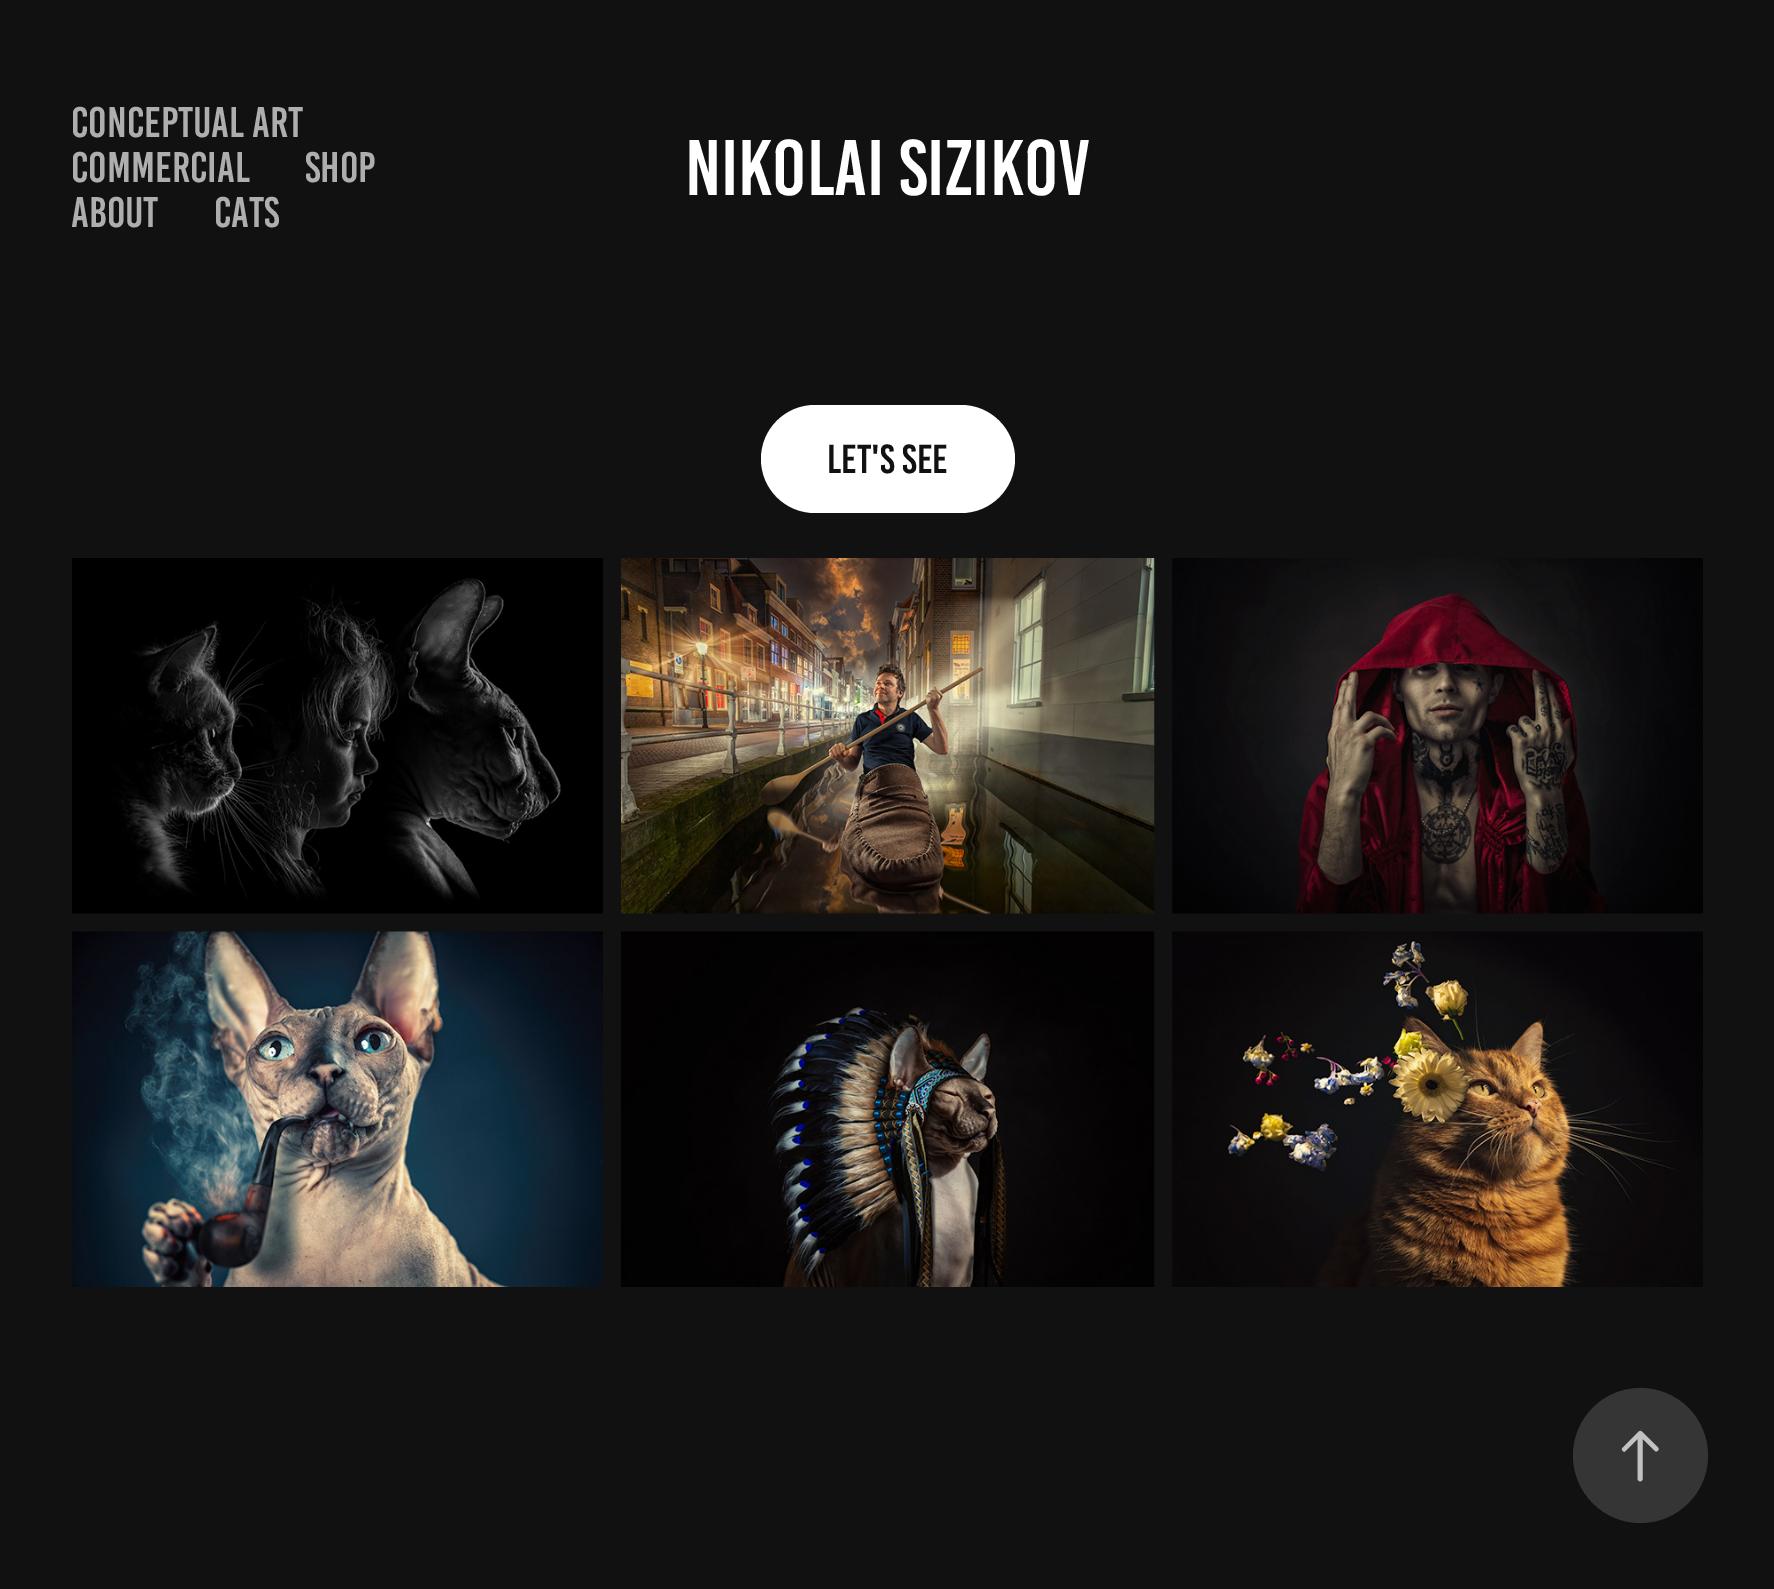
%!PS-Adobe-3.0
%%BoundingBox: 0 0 1774 1589
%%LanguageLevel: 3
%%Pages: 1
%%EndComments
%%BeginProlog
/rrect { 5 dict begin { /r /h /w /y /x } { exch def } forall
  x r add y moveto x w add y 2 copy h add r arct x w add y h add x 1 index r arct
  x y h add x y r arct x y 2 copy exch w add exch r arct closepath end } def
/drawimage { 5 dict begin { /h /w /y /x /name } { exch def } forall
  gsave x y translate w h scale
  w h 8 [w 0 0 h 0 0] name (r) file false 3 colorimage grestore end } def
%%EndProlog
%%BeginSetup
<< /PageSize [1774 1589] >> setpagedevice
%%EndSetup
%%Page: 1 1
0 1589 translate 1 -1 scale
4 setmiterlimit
0.067 setgray
0 0 1774 1589 rectfill
1 setgray
761 405 254 108 54 rrect fill
(images/1.raw) 72 558 531 356 drawimage
(images/2.raw) 621 558 534 356 drawimage
(images/3.raw) 1172 558 531 356 drawimage
(images/4.raw) 72 931 531 356 drawimage
(images/5.raw) 621 931 534 356 drawimage
(images/6.raw) 1172 931 531 356 drawimage
0.208 setgray
newpath 1640.5 1455.5 67.5 0 360 arc closepath fill
(images/7.raw) 1621 1430 38 52 drawimage
/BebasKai-Regular [42.75 0 0 -42.75 0 0] selectfont
0.682 setgray
71 137 moveto (CONCEPTUAL ART) show
71 182 moveto (COMMERCIAL) show
305 182 moveto (SHOP) show
71 227 moveto (ABOUT) show
214 227 moveto (CATS) show
/BebasKai-Regular [78.75 0 0 -78.75 0 0] selectfont
1 setgray
685 195 moveto (NIKOLAI SIZIKOV) show
/BebasKai-Regular [40.5 0 0 -40.5 0 0] selectfont
0.067 setgray
827 473 moveto (Let's see) show
showpage
%%EOF
